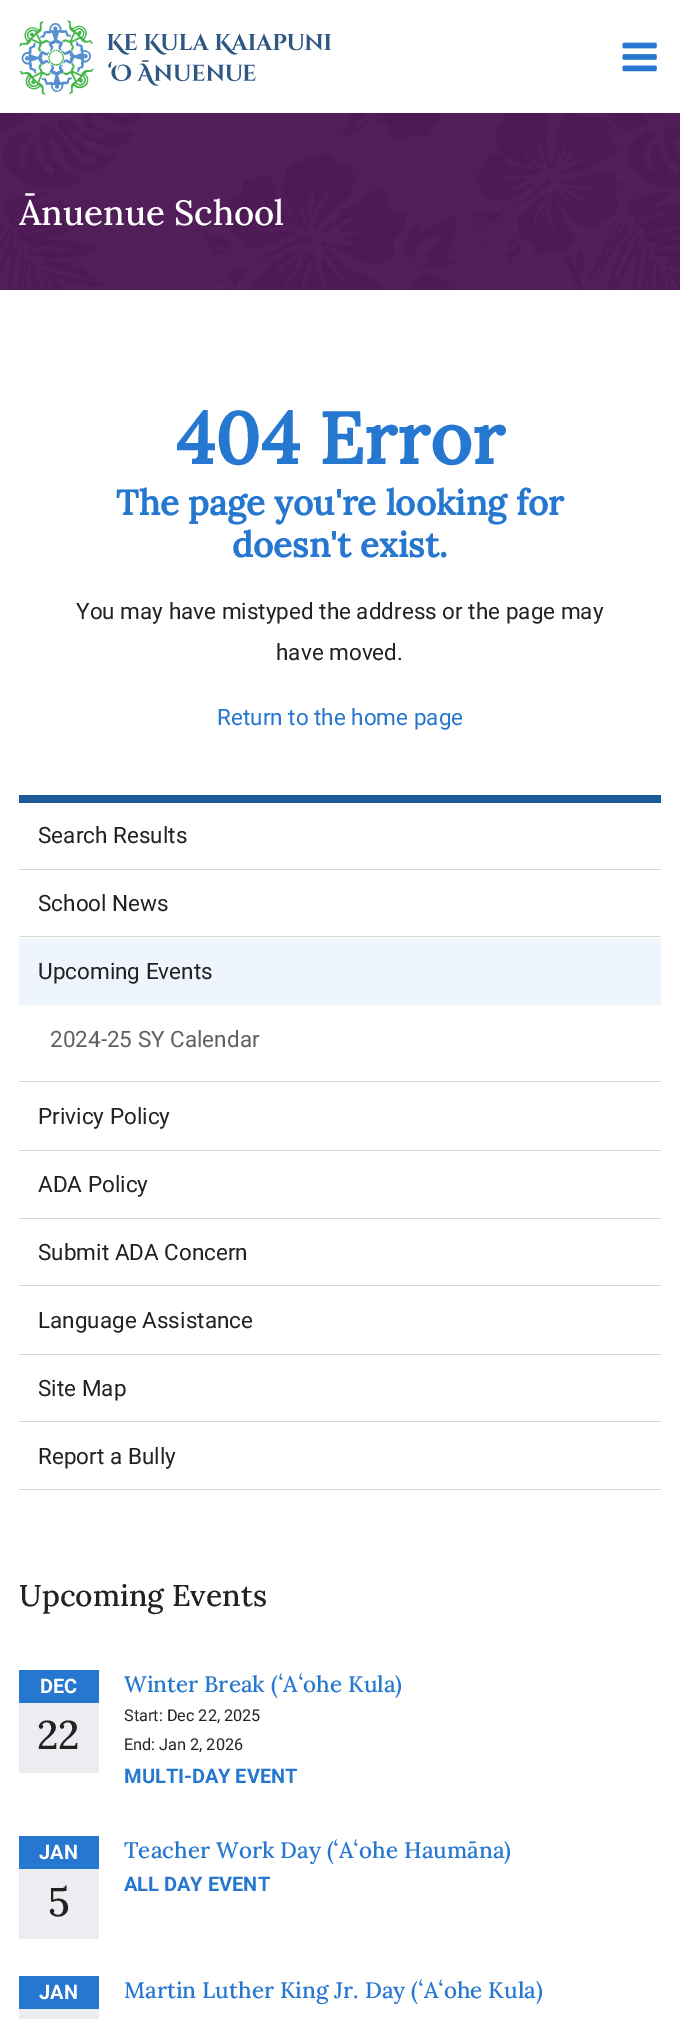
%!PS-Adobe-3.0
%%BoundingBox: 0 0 680 2019
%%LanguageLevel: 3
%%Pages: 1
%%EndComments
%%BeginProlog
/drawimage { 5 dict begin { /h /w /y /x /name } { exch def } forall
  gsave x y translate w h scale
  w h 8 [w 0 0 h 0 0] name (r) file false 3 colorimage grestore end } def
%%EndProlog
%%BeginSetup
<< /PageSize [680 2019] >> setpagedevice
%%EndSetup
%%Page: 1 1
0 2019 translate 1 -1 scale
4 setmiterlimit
1 setgray
0 0 680 2019 rectfill
(images/1.raw) 19 20 312 75 drawimage
(images/2.raw) 622 42 35 30 drawimage
0.29 0.075 0.325 setrgbcolor
0 113 680 177 rectfill
(images/3.raw) 0 113 680 177 drawimage
0.11 0.353 0.612 setrgbcolor
19 795 642 8 rectfill
0.839 0.851 0.827 setrgbcolor
19 869 642 1 rectfill
19 936 642 1 rectfill
19 1081 642 1 rectfill
0.933 0.961 0.988 setrgbcolor
19 938 642 67 rectfill
0.839 0.851 0.827 setrgbcolor
19 1150 642 1 rectfill
19 1218 642 1 rectfill
19 1285 642 1 rectfill
19 1354 642 1 rectfill
19 1421 642 1 rectfill
19 1489 642 1 rectfill
0.145 0.467 0.816 setrgbcolor
19 1670 80 33 rectfill
0.922 0.929 0.941 setrgbcolor
19 1703 80 70 rectfill
0.145 0.467 0.816 setrgbcolor
19 1836 80 33 rectfill
0.922 0.929 0.941 setrgbcolor
19 1869 80 70 rectfill
0.145 0.467 0.816 setrgbcolor
19 1976 80 33 rectfill
0.922 0.929 0.941 setrgbcolor
19 2009 80 10 rectfill
/Lora-Medium [35 0 0 -35 0 0] selectfont
1 setgray
19 225 moveto (Ānuenue School) show
/Lora-Bold [72.5 0 0 -72.5 0 0] selectfont
0.145 0.467 0.816 setrgbcolor
176 464 moveto (404 Error) show
/Lora-Bold [35 0 0 -35 0 0] selectfont
116 515 moveto (The page you're looking for) show
232 557 moveto (doesn't exist.) show
/Roboto-Regular [22.5 0 0 -22.5 0 0] selectfont
0.133 setgray
76 619 moveto (You may have mistyped the address or the page may) show
276 660 moveto (have moved.) show
0.145 0.467 0.816 setrgbcolor
217 725 moveto (Return to the home page) show
0.133 setgray
38 843 moveto (Search Results) show
38 911 moveto (School News) show
38 979 moveto (Upcoming Events) show
0.376 0.38 0.388 setrgbcolor
50 1047 moveto (2024-25 SY Calendar) show
0.133 setgray
38 1124 moveto (Privicy Policy) show
38 1192 moveto (ADA Policy) show
38 1260 moveto (Submit ADA Concern) show
38 1328 moveto (Language Assistance) show
38 1396 moveto (Site Map) show
38 1464 moveto (Report a Bully) show
/Lora-Medium [30 0 0 -30 0 0] selectfont
19 1606 moveto (Upcoming Events) show
/Roboto-Bold [20 0 0 -20 0 0] selectfont
1 setgray
40 1693 moveto (DEC) show
/Lora-Medium [40 0 0 -40 0 0] selectfont
0.133 setgray
37 1749 moveto (22) show
/Lora-Medium [22.5 0 0 -22.5 0 0] selectfont
0.145 0.467 0.816 setrgbcolor
124 1692 moveto (Winter Break \(ʻAʻohe Kula\)) show
/Roboto-Regular [16.25 0 0 -16.25 0 0] selectfont
0.133 setgray
124 1721 moveto (Start: Dec 22, 2025) show
124 1750 moveto (End: Jan 2, 2026) show
/Roboto-Bold [20 0 0 -20 0 0] selectfont
0.145 0.467 0.816 setrgbcolor
124 1783 moveto (MULTI-DAY EVENT) show
1 setgray
39 1859 moveto (JAN) show
/Lora-Medium [40 0 0 -40 0 0] selectfont
0.133 setgray
48 1916 moveto (5) show
/Lora-Medium [22.5 0 0 -22.5 0 0] selectfont
0.145 0.467 0.816 setrgbcolor
124 1858 moveto (Teacher Work Day \(ʻAʻohe Haumāna\)) show
/Roboto-Bold [20 0 0 -20 0 0] selectfont
124 1891 moveto (ALL DAY EVENT) show
1 setgray
39 1999 moveto (JAN) show
/Lora-Medium [22.5 0 0 -22.5 0 0] selectfont
0.145 0.467 0.816 setrgbcolor
124 1998 moveto (Martin Luther King Jr. Day \(ʻAʻohe Kula\)) show
showpage
%%EOF
